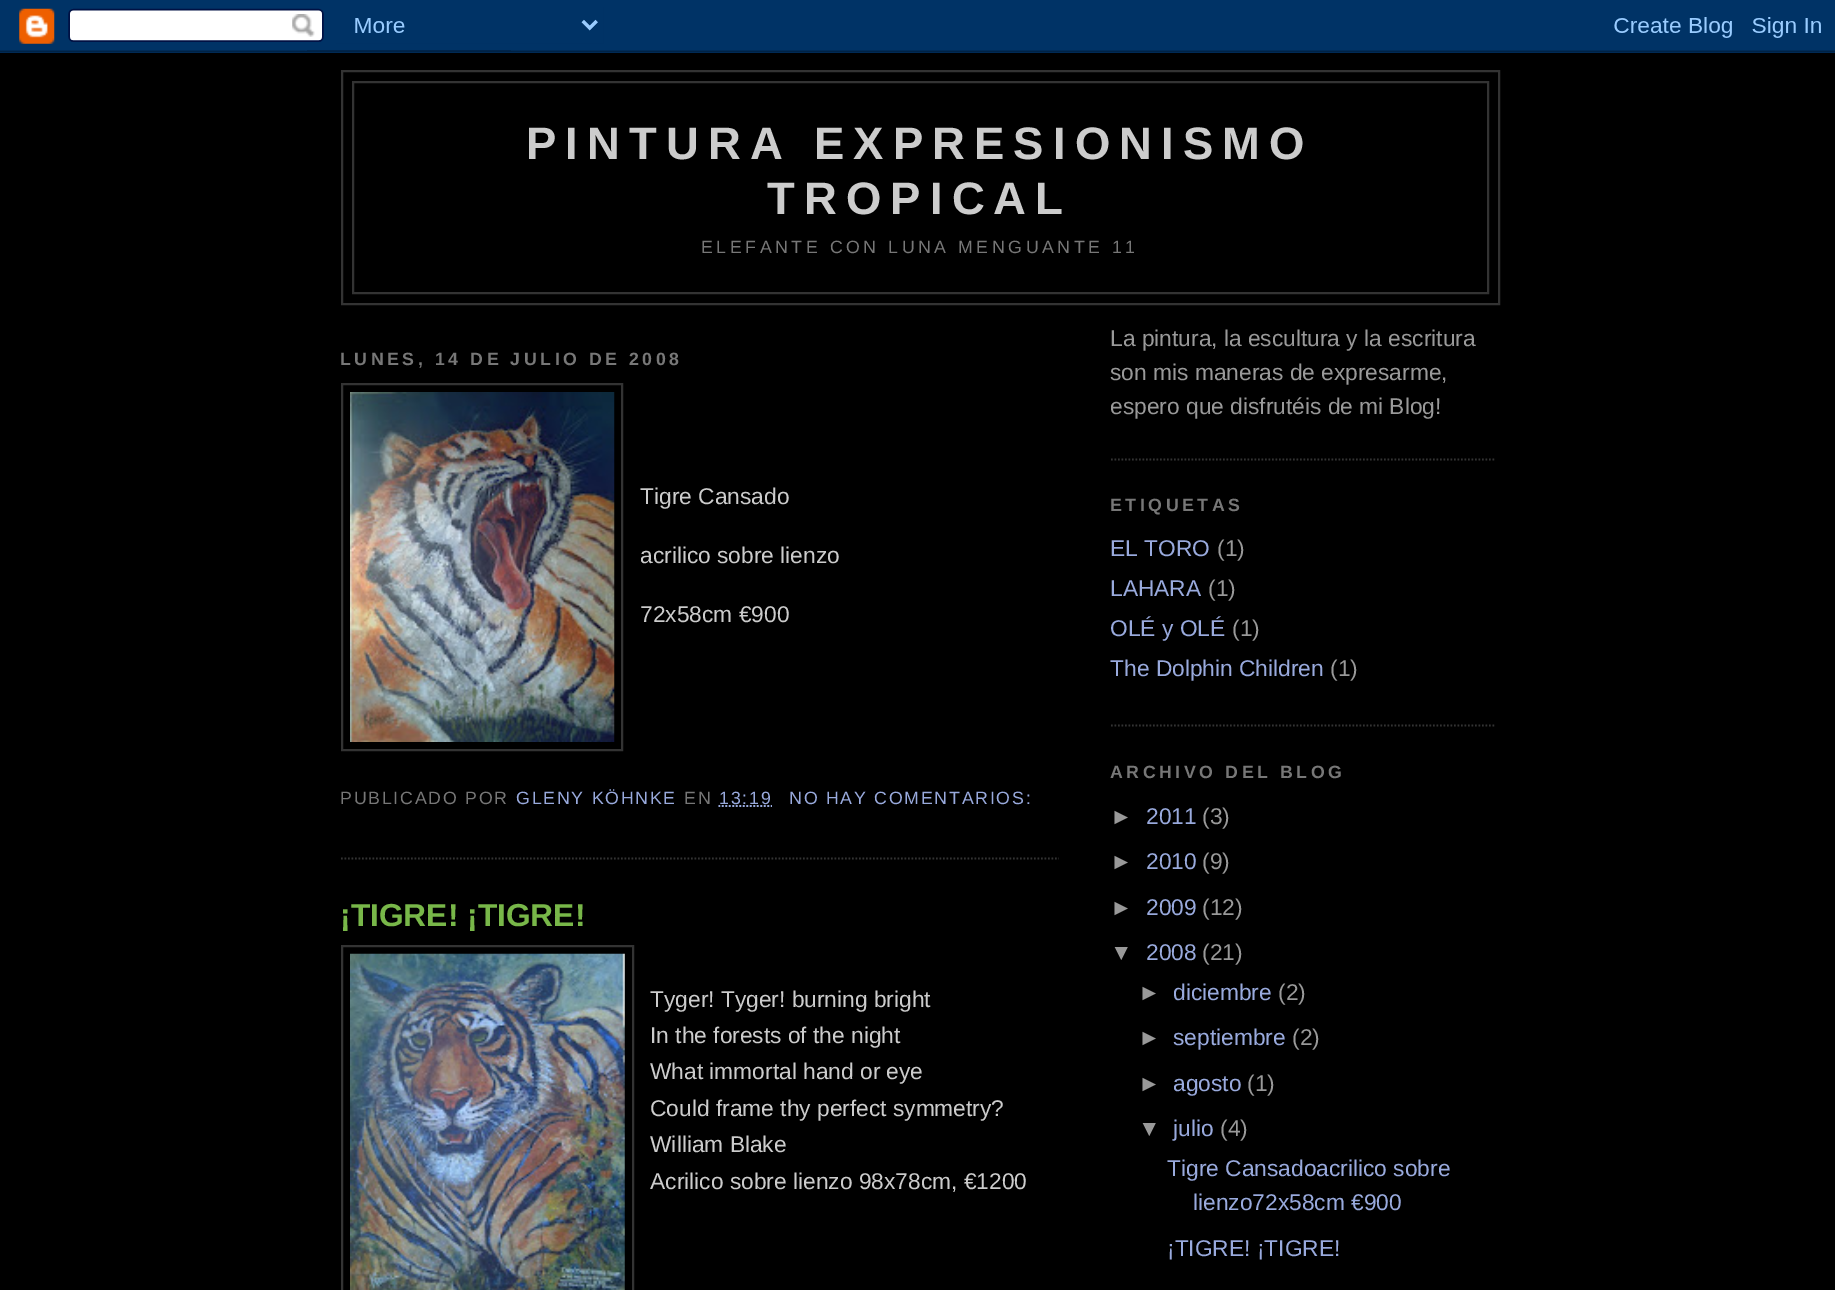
%!PS-Adobe-3.0
%%BoundingBox: 0 0 1835 1290
%%LanguageLevel: 3
%%Pages: 1
%%EndComments
%%BeginProlog
/drawimage { 5 dict begin { /h /w /y /x /name } { exch def } forall
  gsave x y translate w h scale
  w h 8 [w 0 0 h 0 0] name (r) file false 3 colorimage grestore end } def
%%EndProlog
%%BeginSetup
<< /PageSize [1835 1290] >> setpagedevice
%%EndSetup
%%Page: 1 1
0 1290 translate 1 -1 scale
4 setmiterlimit
0 setgray
0 0 1835 1290 rectfill
(images/1.raw) 0 0 1835 53 drawimage
0.2 setgray
2 setlinewidth
342 71 1157 233 rectstroke
353 82 1135 211 rectstroke
1.8 setlinewidth
[1.75 1.75] 0 setdash
newpath 341 858.5 moveto 1059 858.5 lineto stroke
2 setlinewidth
[] 0 setdash
342 384 280 366 rectstroke
(images/2.raw) 350 392 265 350 drawimage
0.6 0.667 0.867 setrgbcolor
1.8 setlinewidth
[1.75 1.75] 0 setdash
newpath 718.5 806 moveto 772 806 lineto stroke
0.2 setgray
2 setlinewidth
[] 0 setdash
342 946 291 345 rectstroke
(images/3.raw) 350 953 275 337 drawimage
1.8 setlinewidth
[1.75 1.75] 0 setdash
newpath 1111 459.5 moveto 1496 459.5 lineto stroke
newpath 1111 725.5 moveto 1496 725.5 lineto stroke
/LiberationSans-Bold [45.5 0 0 -45.5 0 0] selectfont
0.8 setgray
526 159 moveto 9.1 0 (PINTURA EXPRESIONISMO) ashow
767 214 moveto 9.1 0 (TROPICAL) ashow
/LiberationSans-Regular [17.75 0 0 -17.75 0 0] selectfont
0.467 setgray
701 253 moveto 3.55 0 (ELEFANTE CON LUNA MENGUANTE 11) ashow
/LiberationSans-Bold [17.75 0 0 -17.75 0 0] selectfont
340 365 moveto 3.55 0 (LUNES, 14 DE JULIO DE 2008) ashow
/LiberationSans-Regular [22.75 0 0 -22.75 0 0] selectfont
0.8 setgray
640 504 moveto (Tigre Cansado) show
640 563 moveto (acrilico sobre lienzo) show
640 622 moveto (72x58cm €900) show
/LiberationSans-Regular [17.75 0 0 -17.75 0 0] selectfont
0.467 setgray
340 804 moveto 1.75 0 (PUBLICADO POR) ashow
0.6 0.667 0.867 setrgbcolor
516 804 moveto 1.75 0 (GLENY KÖHNKE) ashow
0.467 setgray
684 804 moveto 1.75 0 (EN) ashow
0.6 0.667 0.867 setrgbcolor
719 804 moveto 1.75 0 (13:19) ashow
789 804 moveto 1.75 0 (NO HAY COMENTARIOS:) ashow
/LiberationSans-Bold [31.75 0 0 -31.75 0 0] selectfont
0.471 0.718 0.286 setrgbcolor
340 926 moveto (¡TIGRE! ¡TIGRE!) show
/LiberationSans-Regular [22.75 0 0 -22.75 0 0] selectfont
0.8 setgray
650 1007 moveto (Tyger! Tyger! burning bright) show
650 1043 moveto (In the forests of the night) show
650 1079 moveto (What immortal hand or eye) show
650 1116 moveto (Could frame thy perfect symmetry?) show
650 1152 moveto (William Blake) show
650 1189 moveto (Acrilico sobre lienzo 98x78cm, €1200) show
0.6 setgray
1110 346 moveto (La pintura, la escultura y la escritura) show
1110 380 moveto (son mis maneras de expresarme,) show
1110 414 moveto (espero que disfrutéis de mi Blog!) show
/LiberationSans-Bold [17.75 0 0 -17.75 0 0] selectfont
0.467 setgray
1110 511 moveto 3.55 0 (ETIQUETAS) ashow
/LiberationSans-Regular [22.75 0 0 -22.75 0 0] selectfont
0.6 0.667 0.867 setrgbcolor
1110 556 moveto (EL TORO) show
0.6 setgray
1217 556 moveto (\(1\)) show
0.6 0.667 0.867 setrgbcolor
1110 596 moveto (LAHARA) show
0.6 setgray
1208 596 moveto (\(1\)) show
0.6 0.667 0.867 setrgbcolor
1110 636 moveto (OLÉ y OLÉ) show
0.6 setgray
1232 636 moveto (\(1\)) show
0.6 0.667 0.867 setrgbcolor
1110 676 moveto (The Dolphin Children) show
0.6 setgray
1330 676 moveto (\(1\)) show
/LiberationSans-Bold [17.75 0 0 -17.75 0 0] selectfont
0.467 setgray
1110 778 moveto 3.55 0 (ARCHIVO DEL BLOG) ashow
/LiberationSans-Regular [22.75 0 0 -22.75 0 0] selectfont
0.6 setgray
1110 824 moveto (►) show
0.6 0.667 0.867 setrgbcolor
1146 824 moveto (2011) show
0.6 setgray
1202 824 moveto (\(3\)) show
1110 869 moveto (►) show
0.6 0.667 0.867 setrgbcolor
1146 869 moveto (2010) show
0.6 setgray
1202 869 moveto (\(9\)) show
1110 915 moveto (►) show
0.6 0.667 0.867 setrgbcolor
1146 915 moveto (2009) show
0.6 setgray
1202 915 moveto (\(12\)) show
1110 960 moveto (▼) show
0.6 0.667 0.867 setrgbcolor
1146 960 moveto (2008) show
0.6 setgray
1202 960 moveto (\(21\)) show
1138 1000 moveto (►) show
0.6 0.667 0.867 setrgbcolor
1173 1000 moveto (diciembre) show
0.6 setgray
1278 1000 moveto (\(2\)) show
1138 1045 moveto (►) show
0.6 0.667 0.867 setrgbcolor
1173 1045 moveto (septiembre) show
0.6 setgray
1292 1045 moveto (\(2\)) show
1138 1091 moveto (►) show
0.6 0.667 0.867 setrgbcolor
1173 1091 moveto (agosto) show
0.6 setgray
1247 1091 moveto (\(1\)) show
1138 1136 moveto (▼) show
0.6 0.667 0.867 setrgbcolor
1173 1136 moveto (julio) show
0.6 setgray
1220 1136 moveto (\(4\)) show
0.6 0.667 0.867 setrgbcolor
1167 1176 moveto (Tigre Cansadoacrilico sobre) show
1193 1210 moveto (lienzo72x58cm €900) show
1167 1256 moveto (¡TIGRE! ¡TIGRE!) show
showpage
%%EOF
